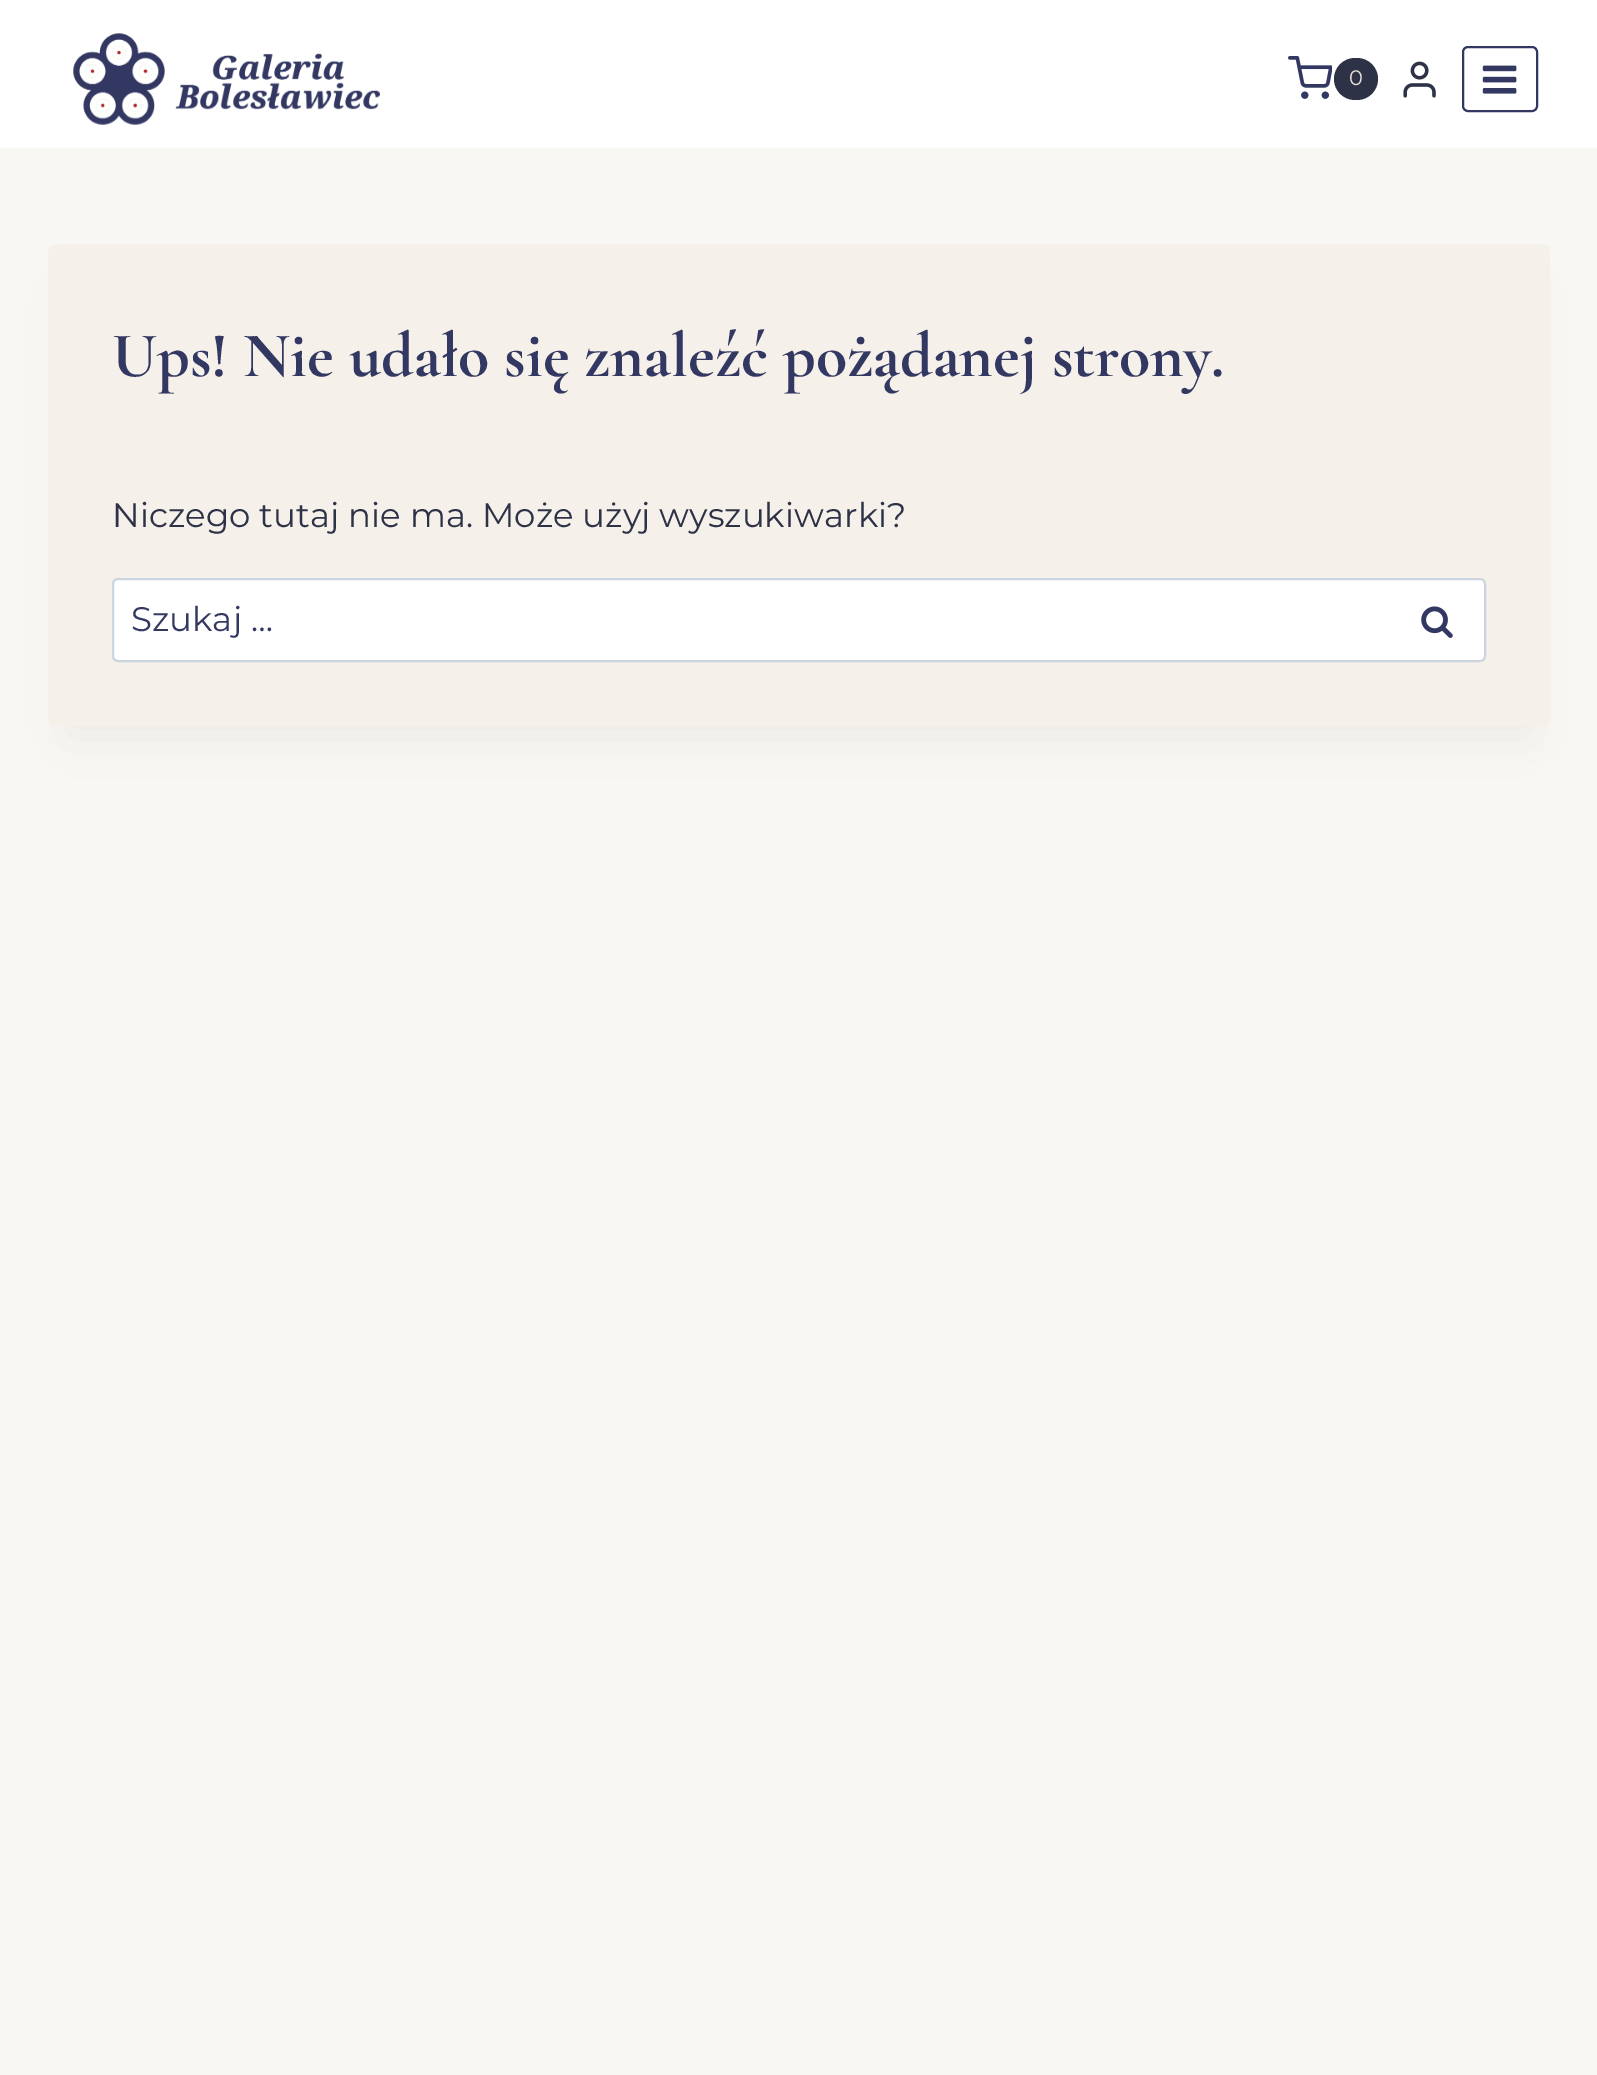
%!PS-Adobe-3.0
%%BoundingBox: 0 0 1597 2075
%%LanguageLevel: 3
%%Pages: 1
%%EndComments
%%BeginProlog
/setalpha { dup .setfillconstantalpha .setstrokeconstantalpha } def
/rrect { 5 dict begin { /r /h /w /y /x } { exch def } forall
  x r add y moveto x w add y 2 copy h add r arct x w add y h add x 1 index r arct
  x y h add x y r arct x y 2 copy exch w add exch r arct closepath end } def
/softshadow { 12 dict begin { /a /b /q /h /w /y /x } { exch def } forall gsave /was 0 def
  9 -2 -9 { dup b mul 4 div /e exch def 1 sub .425 mul 2.718 exch exp 1 add a .99 .min exch div /now exch def
    1 1 now sub 1 was sub div sub setalpha /was now def
    w h .min e 2 mul add 0 gt { x e sub y e sub w e 2 mul add h e 2 mul add
      q e add b .6 mul add w h .min 2 div e add .min 0 .max rrect fill } if } for grestore end } def
/drawimage { 5 dict begin { /h /w /y /x /name } { exch def } forall
  gsave x y translate w h scale
  w h 8 [w 0 0 h 0 0] name (r) file false 3 colorimage grestore end } def
%%EndProlog
%%BeginSetup
<< /PageSize [1597 2075] /PageUsesTransparency true >> setpagedevice
%%EndSetup
%%Page: 1 1
0 .pushpdf14devicefilter
0 2075 translate 1 -1 scale
4 setmiterlimit
0.976 0.969 0.953 setrgbcolor
0 0 1597 2075 rectfill
1 setgray
0 0 1597 148 rectfill
(images/1.raw) 73 33 307 92 drawimage
(images/2.raw) 1288 56 44 43 drawimage
0.176 0.196 0.275 setrgbcolor
1334 58 44 42 21 rrect fill
(images/3.raw) 1403 61 33 37 drawimage
0.2 0.22 0.384 setrgbcolor
2 setlinewidth
1463 47 74 64 5 rrect stroke
(images/4.raw) 1482 65 35 29 drawimage
0 setgray
68 294 1462 442 0 25 0.05 softshadow
0.961 0.941 0.914 setrgbcolor
48 244 1502 482 8 rrect fill
1 setgray
113 579 1372 82 5 rrect gsave fill grestore
0.796 0.835 0.878 setrgbcolor
stroke
(images/5.raw) 1421 606 32 32 drawimage
/Montserrat-Regular [21 0 0 -21 0 0] selectfont
0.91 0.882 0.835 setrgbcolor
1349 85 moveto (0) show
/CormorantGaramond-Light [64 0 0 -64 0 0] selectfont
0.2 0.22 0.384 setrgbcolor
112 376 moveto (Ups! Nie udało się znaleźć pożądanej strony.) show
/Montserrat-Regular [34 0 0 -34 0 0] selectfont
0.176 0.196 0.275 setrgbcolor
112 527 moveto (Niczego tutaj nie ma. Może użyj wyszukiwarki?) show
0.2 0.22 0.384 setrgbcolor
131 631 moveto (Szukaj …) show
.poppdf14devicefilter showpage
%%EOF
